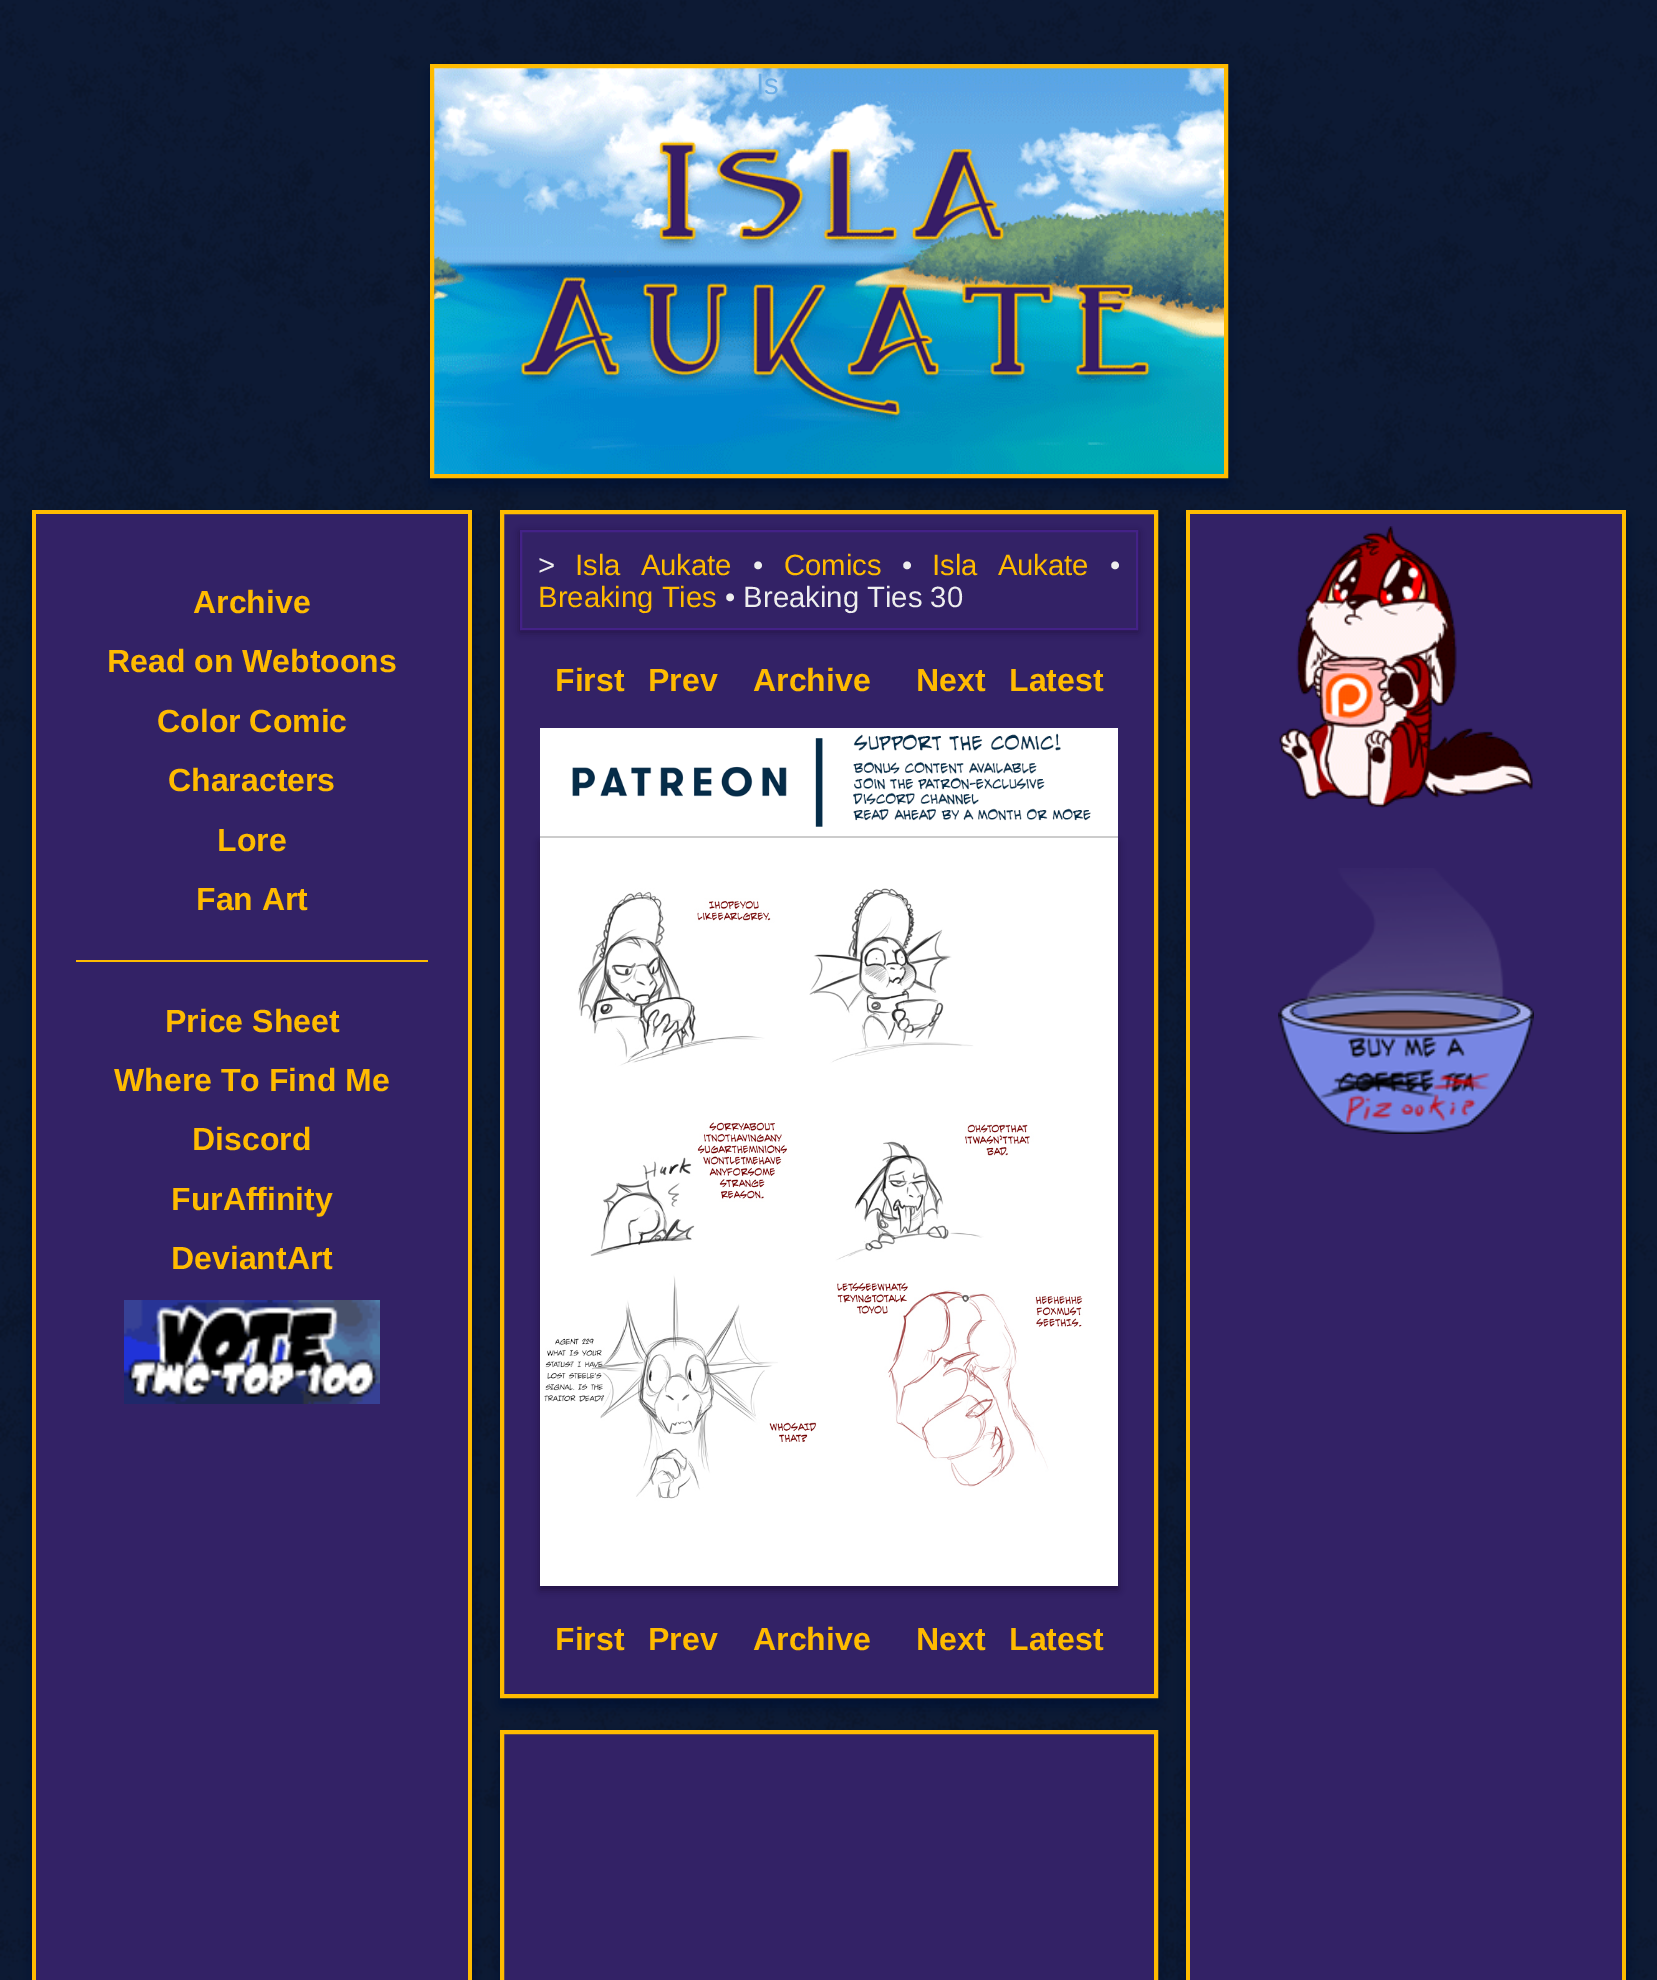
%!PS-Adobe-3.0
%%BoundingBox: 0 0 1657 1980
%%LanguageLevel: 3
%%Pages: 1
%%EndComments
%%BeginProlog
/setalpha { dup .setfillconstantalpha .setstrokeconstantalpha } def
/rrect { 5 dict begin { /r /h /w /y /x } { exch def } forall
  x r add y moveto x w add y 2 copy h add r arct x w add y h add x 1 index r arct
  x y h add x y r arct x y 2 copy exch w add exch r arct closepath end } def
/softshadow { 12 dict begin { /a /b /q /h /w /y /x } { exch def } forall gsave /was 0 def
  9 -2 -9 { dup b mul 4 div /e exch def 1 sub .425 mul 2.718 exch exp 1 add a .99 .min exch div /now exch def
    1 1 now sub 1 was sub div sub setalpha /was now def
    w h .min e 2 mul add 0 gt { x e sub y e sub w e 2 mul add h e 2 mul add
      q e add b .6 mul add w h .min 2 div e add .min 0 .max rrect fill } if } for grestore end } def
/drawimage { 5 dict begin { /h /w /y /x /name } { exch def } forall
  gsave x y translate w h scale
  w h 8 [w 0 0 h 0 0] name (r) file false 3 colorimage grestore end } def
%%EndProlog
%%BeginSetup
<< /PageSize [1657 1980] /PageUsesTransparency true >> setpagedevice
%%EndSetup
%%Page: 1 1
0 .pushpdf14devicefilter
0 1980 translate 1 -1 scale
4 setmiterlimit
1 setgray
0 0 1657 1980 rectfill
(images/1.raw) 0 0 1657 1980 drawimage
0 0.067 0.2 setrgbcolor
430 72 798 414 0 7.5 1 softshadow
(images/2.raw) 434 68 790 406 drawimage
1 0.733 0 setrgbcolor
4 setlinewidth
432 66 794 410 rectstroke
0 0.067 0.2 setrgbcolor
32 518 440 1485 0 7.5 1 softshadow
0.2 0.133 0.4 setrgbcolor
36 514 432 1466 rectfill
1 0.733 0 setrgbcolor
32 510 440 4 rectfill
468 510 4 1470 rectfill
32 510 4 1470 rectfill
76 960 352 2 rectfill
(images/3.raw) 124 1300 256 104 drawimage
0 0.067 0.2 setrgbcolor
500 518 658 1188 0 7.5 1 softshadow
0.2 0.133 0.4 setrgbcolor
newpath 502 512 moveto 1156 512 lineto 1156 1696 lineto 502 1696 lineto closepath gsave fill grestore
1 0.733 0 setrgbcolor
stroke
gsave
newpath 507 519 moveto 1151 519 lineto 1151 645 lineto 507 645 lineto closepath 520 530 moveto 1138 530 lineto 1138 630 lineto 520 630 lineto closepath eoclip newpath
0.133 0.067 0.267 setrgbcolor
520 532 618 100 0 4 1 softshadow
grestore
0.267 0.133 0.533 setrgbcolor
2 setlinewidth
521 531 616 98 rectstroke
0.133 0.067 0.267 setrgbcolor
540 842 578 748 0 4 1 softshadow
0.8 setgray
540 836 578 2 rectfill
(images/4.raw) 540 728 578 108 drawimage
(images/5.raw) 540 838 578 748 drawimage
0 0.067 0.2 setrgbcolor
500 1738 658 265 0 7.5 1 softshadow
0.2 0.133 0.4 setrgbcolor
newpath 502 1732 moveto 1156 1732 lineto 1156 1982 lineto 502 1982 lineto closepath gsave fill grestore
1 0.733 0 setrgbcolor
4 setlinewidth
stroke
0 0.067 0.2 setrgbcolor
1186 518 440 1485 0 7.5 1 softshadow
0.2 0.133 0.4 setrgbcolor
1190 514 432 1466 rectfill
1 0.733 0 setrgbcolor
1186 510 440 4 rectfill
1622 510 4 1470 rectfill
1186 510 4 1470 rectfill
(images/6.raw) 1278 526 256 282 drawimage
(images/7.raw) 1278 868 256 266 drawimage
/LiberationSans-Regular [29.25 0 0 -29.25 0 0] selectfont
0.416 0.678 0.906 setrgbcolor
756 94 moveto (Is) show
/LiberationSans-Bold [32 0 0 -32 0 0] selectfont
1 0.733 0 setrgbcolor
193 613 moveto (Archive) show
107 672 moveto (Read on Webtoons) show
157 732 moveto (Color Comic) show
168 791 moveto (Characters) show
217 851 moveto (Lore) show
196 910 moveto (Fan Art) show
165 1032 moveto (Price Sheet) show
114 1091 moveto (Where To Find Me) show
192 1150 moveto (Discord) show
171 1210 moveto (FurAffinity) show
171 1269 moveto (DeviantArt) show
/LiberationSans-Regular [29.25 0 0 -29.25 0 0] selectfont
0.933 setgray
538 575 moveto (>) show
1 0.733 0 setrgbcolor
575 575 moveto 12 0 32 (Isla Aukate) widthshow
0.933 setgray
753 575 moveto (•) show
1 0.733 0 setrgbcolor
784 575 moveto (Comics) show
0.933 setgray
902 575 moveto (•) show
1 0.733 0 setrgbcolor
932 575 moveto 12 0 32 (Isla Aukate) widthshow
0.933 setgray
1110 575 moveto (•) show
1 0.733 0 setrgbcolor
538 607 moveto (Breaking Ties) show
0.933 setgray
725 607 moveto (• Breaking Ties 30) show
/LiberationSans-Bold [32 0 0 -32 0 0] selectfont
1 0.733 0 setrgbcolor
555 691 moveto (First) show
648 691 moveto (Prev) show
753 691 moveto (Archive) show
916 691 moveto (Next) show
1009 691 moveto (Latest) show
555 1650 moveto (First) show
648 1650 moveto (Prev) show
753 1650 moveto (Archive) show
916 1650 moveto (Next) show
1009 1650 moveto (Latest) show
.poppdf14devicefilter showpage
%%EOF
